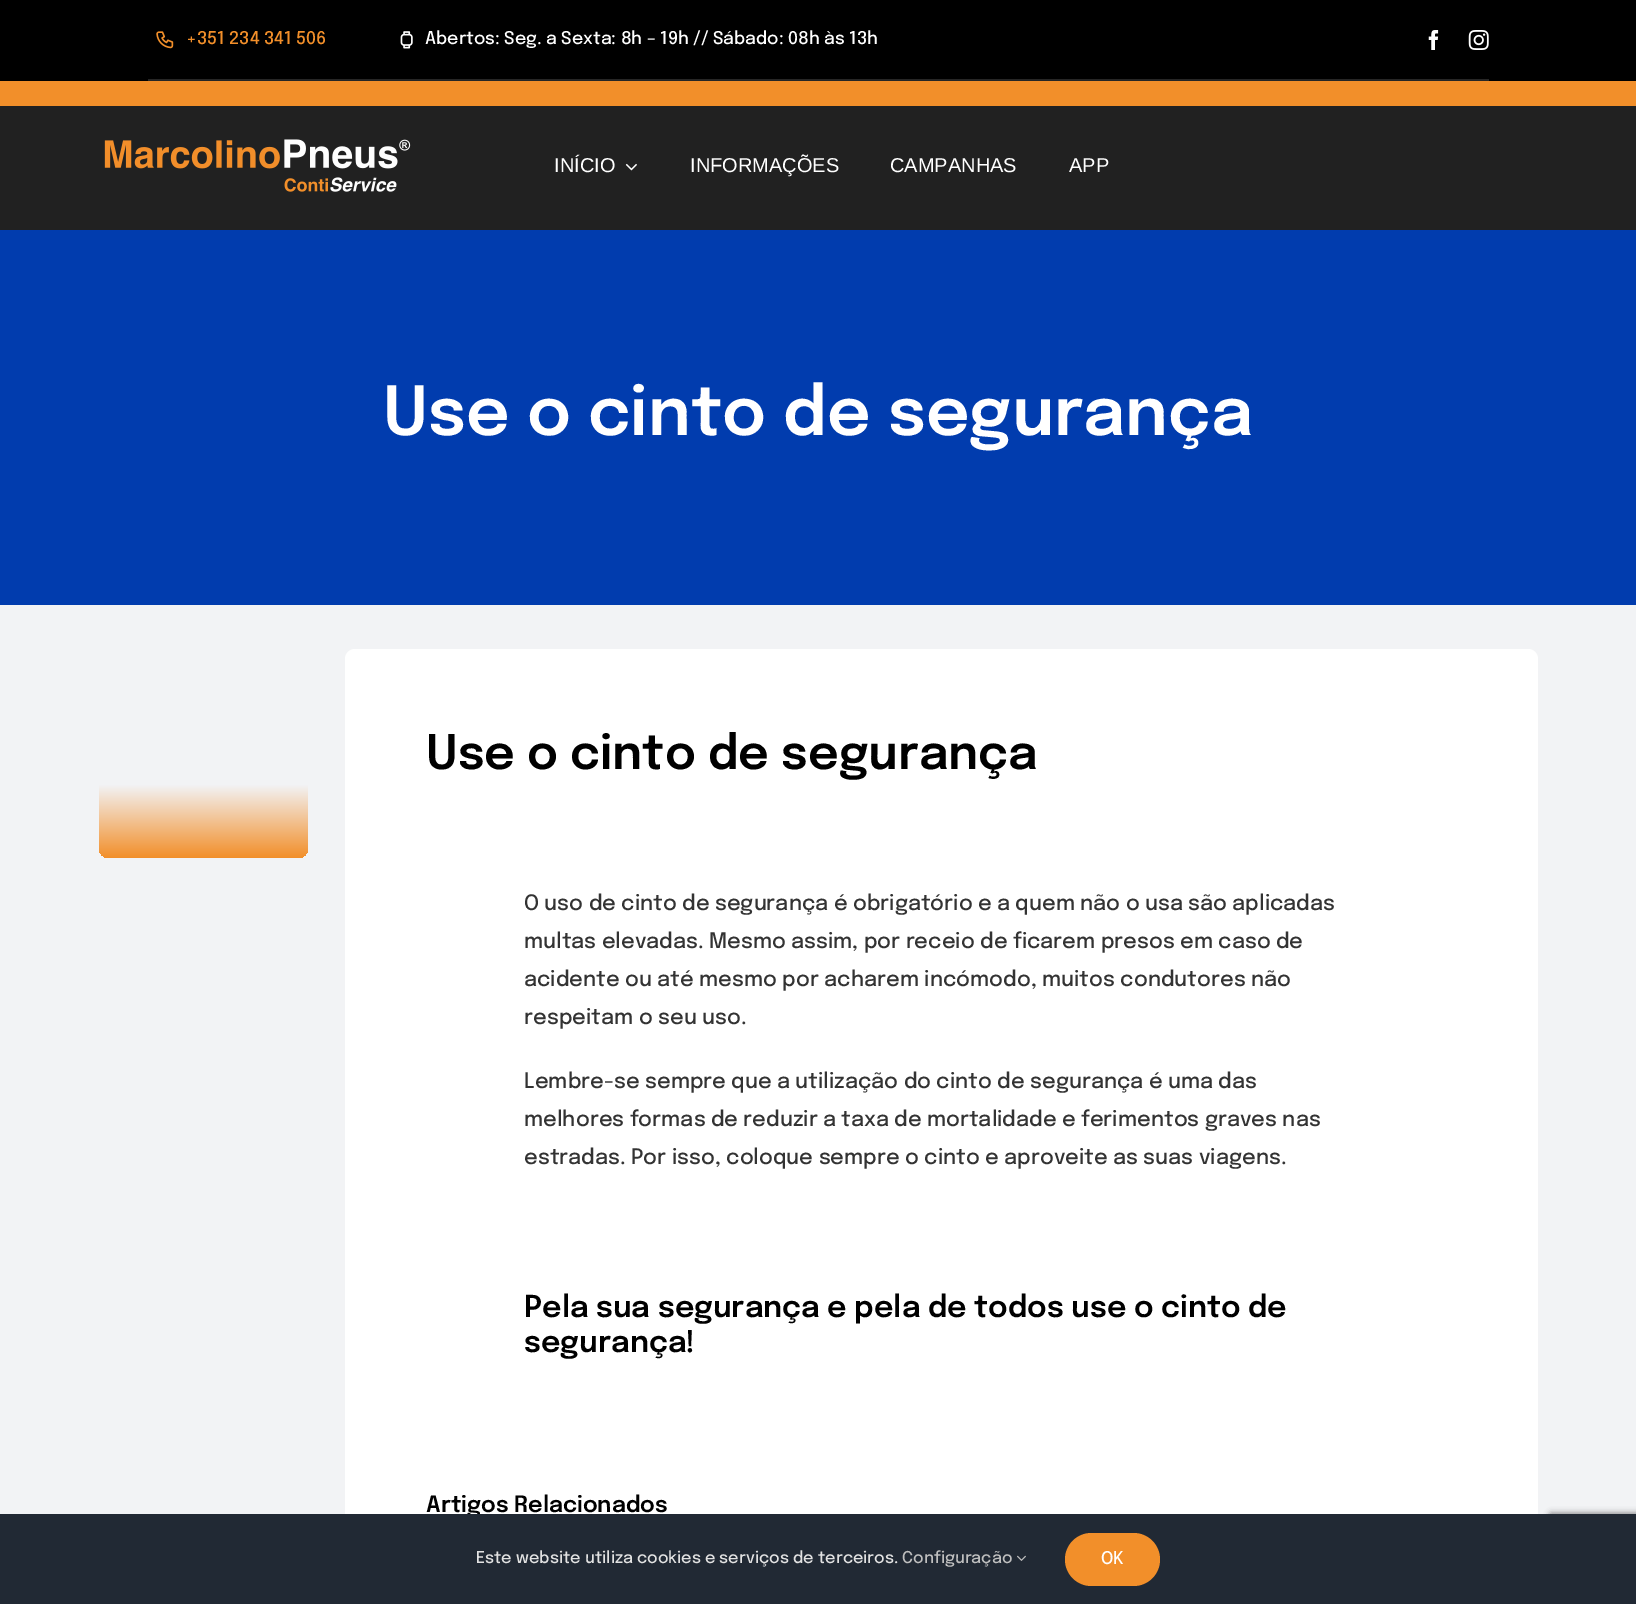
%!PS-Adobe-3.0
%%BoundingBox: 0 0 1636 1604
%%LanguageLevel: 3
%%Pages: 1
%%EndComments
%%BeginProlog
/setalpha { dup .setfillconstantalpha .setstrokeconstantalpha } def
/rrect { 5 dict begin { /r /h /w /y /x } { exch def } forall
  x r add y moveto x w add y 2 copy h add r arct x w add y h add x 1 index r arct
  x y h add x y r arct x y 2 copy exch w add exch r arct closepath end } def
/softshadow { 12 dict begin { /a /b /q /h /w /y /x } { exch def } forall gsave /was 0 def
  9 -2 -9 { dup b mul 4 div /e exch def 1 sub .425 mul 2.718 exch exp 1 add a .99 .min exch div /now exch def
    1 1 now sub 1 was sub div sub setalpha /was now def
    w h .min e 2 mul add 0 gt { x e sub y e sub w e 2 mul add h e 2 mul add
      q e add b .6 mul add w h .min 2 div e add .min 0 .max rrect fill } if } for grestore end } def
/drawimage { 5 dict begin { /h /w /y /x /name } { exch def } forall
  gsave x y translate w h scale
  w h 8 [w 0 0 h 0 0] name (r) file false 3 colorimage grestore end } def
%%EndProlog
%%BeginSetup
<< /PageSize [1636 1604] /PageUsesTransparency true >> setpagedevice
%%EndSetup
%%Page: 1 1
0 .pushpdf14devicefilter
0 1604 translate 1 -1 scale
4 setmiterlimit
0.004 0.235 0.682 setrgbcolor
0 0 1636 1604 rectfill
0 setgray
0 0 1636 81 rectfill
0.149 setgray
148 79 1341 2 rectfill
(images/1.raw) 156 31 18 18 drawimage
(images/2.raw) 400 31 13 18 drawimage
(images/3.raw) 1428 30 11 20 drawimage
(images/4.raw) 1468 30 21 20 drawimage
0.949 0.561 0.165 setrgbcolor
0 81 1636 25 rectfill
0.129 setgray
0 106 1636 124 rectfill
(images/5.raw) 104 139 307 53 drawimage
(images/6.raw) 625 163 12 8 drawimage
0.949 0.953 0.961 setrgbcolor
0 605 1636 909 rectfill
gsave 99 649 209 209 10 rrect clip newpath
<< /ShadingType 2 /ColorSpace /DeviceRGB /Coords [203 649 203 858] /Extend [true true] /Function << /FunctionType 3 /Domain [0 1] /Functions [<< /FunctionType 2 /Domain [0 1] /C0 [0.949 0.953 0.961] /C1 [0.949 0.953 0.961] /N 1 >> << /FunctionType 2 /Domain [0 1] /C0 [0.949 0.953 0.961] /C1 [0.949 0.561 0.165] /N 1 >>] /Bounds [0.65] /Encode [0 1 0 1] >> >> shfill grestore
1 setgray
345 649 1193 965 10 rrect fill
0.502 setgray
1549 1513 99 75 2.5 3 1 softshadow
/Epilogue-Medium [17.5 0 0 -17.5 0 0] selectfont
0.949 0.561 0.165 setrgbcolor
186 44 moveto (+351 234 341 506) show
1 setgray
425 44 moveto (Abertos: Seg. a Sexta: 8h – 19h // Sábado: 08h às 13h) show
/LiberationSans-Regular [20 0 0 -20 0 0] selectfont
554 172 moveto (INÍCIO) show
690 172 moveto (INFORMAÇÕES) show
890 172 moveto (CAMPANHAS) show
1069 172 moveto (APP) show
/Epilogue-SemiBold [67.5 0 0 -67.5 0 0] selectfont
383 435 moveto (Use o cinto de segurança) show
/Epilogue-SemiBold [47.5 0 0 -47.5 0 0] selectfont
0 setgray
426 769 moveto (Use o cinto de segurança) show
/Epilogue-Medium [21.25 0 0 -21.25 0 0] selectfont
0.2 setgray
524 910 moveto (O uso de cinto de segurança é obrigatório e a quem não o usa são aplicadas) show
524 948 moveto (multas elevadas. Mesmo assim, por receio de ficarem presos em caso de) show
524 986 moveto (acidente ou até mesmo por acharem incómodo, muitos condutores não) show
524 1024 moveto (respeitam o seu uso.) show
524 1088 moveto (Lembre-se sempre que a utilização do cinto de segurança é uma das) show
524 1126 moveto (melhores formas de reduzir a taxa de mortalidade e ferimentos graves nas) show
524 1164 moveto (estradas. Por isso, coloque sempre o cinto e aproveite as suas viagens.) show
/Epilogue-SemiBold [30 0 0 -30 0 0] selectfont
0 setgray
524 1317 moveto (Pela sua segurança e pela de todos use o cinto de) show
524 1352 moveto (segurança!) show
/Epilogue-SemiBold [22.5 0 0 -22.5 0 0] selectfont
426 1512 moveto (Artigos Relacionados) show
0.129 0.161 0.204 setrgbcolor
0 1514 1636 90 rectfill
/Epilogue-Medium [16.25 0 0 -16.25 0 0] selectfont
0.886 setgray
476 1563 moveto (Este website utiliza cookies e serviços de terceiros.) show
0.749 setgray
902 1563 moveto (Configuração) show
(images/7.raw) 1017 1555 9 6 drawimage
0.949 0.561 0.165 setrgbcolor
1065 1533 95 53 26.5 rrect fill
/Epilogue-Medium [17.5 0 0 -17.5 0 0] selectfont
1 setgray
1101 1564 moveto (OK) show
.poppdf14devicefilter showpage
%%EOF
